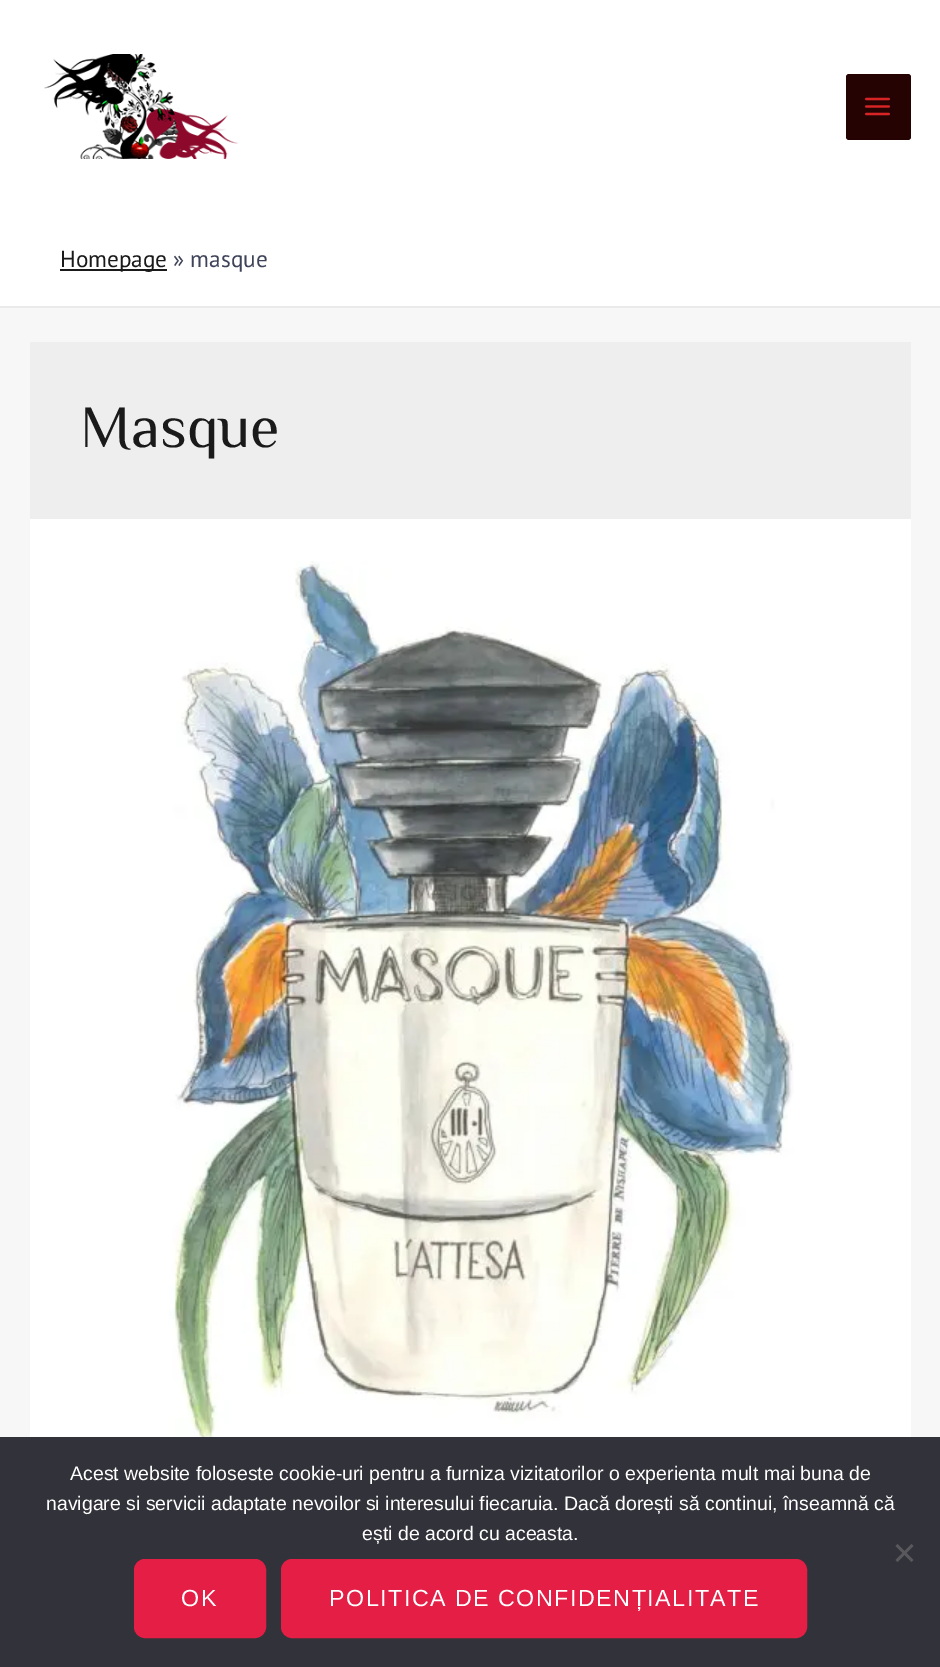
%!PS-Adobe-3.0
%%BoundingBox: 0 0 940 1667
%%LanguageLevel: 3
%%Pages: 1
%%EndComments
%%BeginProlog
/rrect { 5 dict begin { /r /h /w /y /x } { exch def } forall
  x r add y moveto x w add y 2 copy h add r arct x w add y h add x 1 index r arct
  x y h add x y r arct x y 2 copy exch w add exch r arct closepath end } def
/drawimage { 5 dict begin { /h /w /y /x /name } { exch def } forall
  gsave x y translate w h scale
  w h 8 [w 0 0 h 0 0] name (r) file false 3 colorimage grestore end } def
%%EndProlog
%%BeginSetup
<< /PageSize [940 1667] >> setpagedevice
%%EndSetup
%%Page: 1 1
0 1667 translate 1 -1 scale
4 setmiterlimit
0.969 setgray
0 0 940 1667 rectfill
1 setgray
0 0 940 306 rectfill
(images/1.raw) 44 54 195 105 drawimage
0.145 0.012 0.012 setrgbcolor
846 74 65 66 3 rrect fill
(images/2.raw) 865 97 25 19 drawimage
0.918 setgray
0 306 940 2 rectfill
0.102 setgray
60 269 107 2 rectfill
0.933 setgray
30 342 881 177 rectfill
1 setgray
30 519 881 918 rectfill
(images/3.raw) 169 561 625 876 drawimage
0.196 0.196 0.227 setrgbcolor
0 1437 940 230 rectfill
0.349 0.349 0.365 setrgbcolor
newpath 911.5 1544 moveto 913.5 1546 lineto 897.5 1562 lineto 895.5 1560 lineto closepath fill
newpath 895.5 1546 moveto 897.5 1544 lineto 913.5 1560 lineto 911.5 1562 lineto closepath fill
0.894 0.118 0.271 setrgbcolor
135.5 1560.5 129 76 9.5 rrect gsave fill grestore
3 setlinewidth
stroke
282.5 1560.5 523 76 9.5 rrect gsave fill grestore
stroke
/PTSans-Regular [23.25 0 0 -23.25 0 0] selectfont
0.102 setgray
60 267 moveto (Homepage) show
0.243 0.263 0.349 setrgbcolor
173 267 moveto (» masque) show
/Philosopher-Regular [60 0 0 -60 0 0] selectfont
0.102 setgray
80 447 moveto (Masque) show
/LiberationSans-Regular [19.5 0 0 -19.5 0 0] selectfont
1 setgray
70 1480 moveto (Acest website foloseste cookie-uri pentru a furniza vizitatorilor o experienta mult mai buna de) show
46 1510 moveto (navigare si servicii adaptate nevoilor si interesului fiecaruia. Dacă dorești să continui, înseamnă că) show
362 1540 moveto (ești de acord cu aceasta.) show
/LiberationSans-Regular [23.25 0 0 -23.25 0 0] selectfont
181 1606 moveto 1.5 0 (OK) ashow
329 1606 moveto 1.5 0 (POLITICA DE CONFIDENȚIALITATE) ashow
showpage
%%EOF
